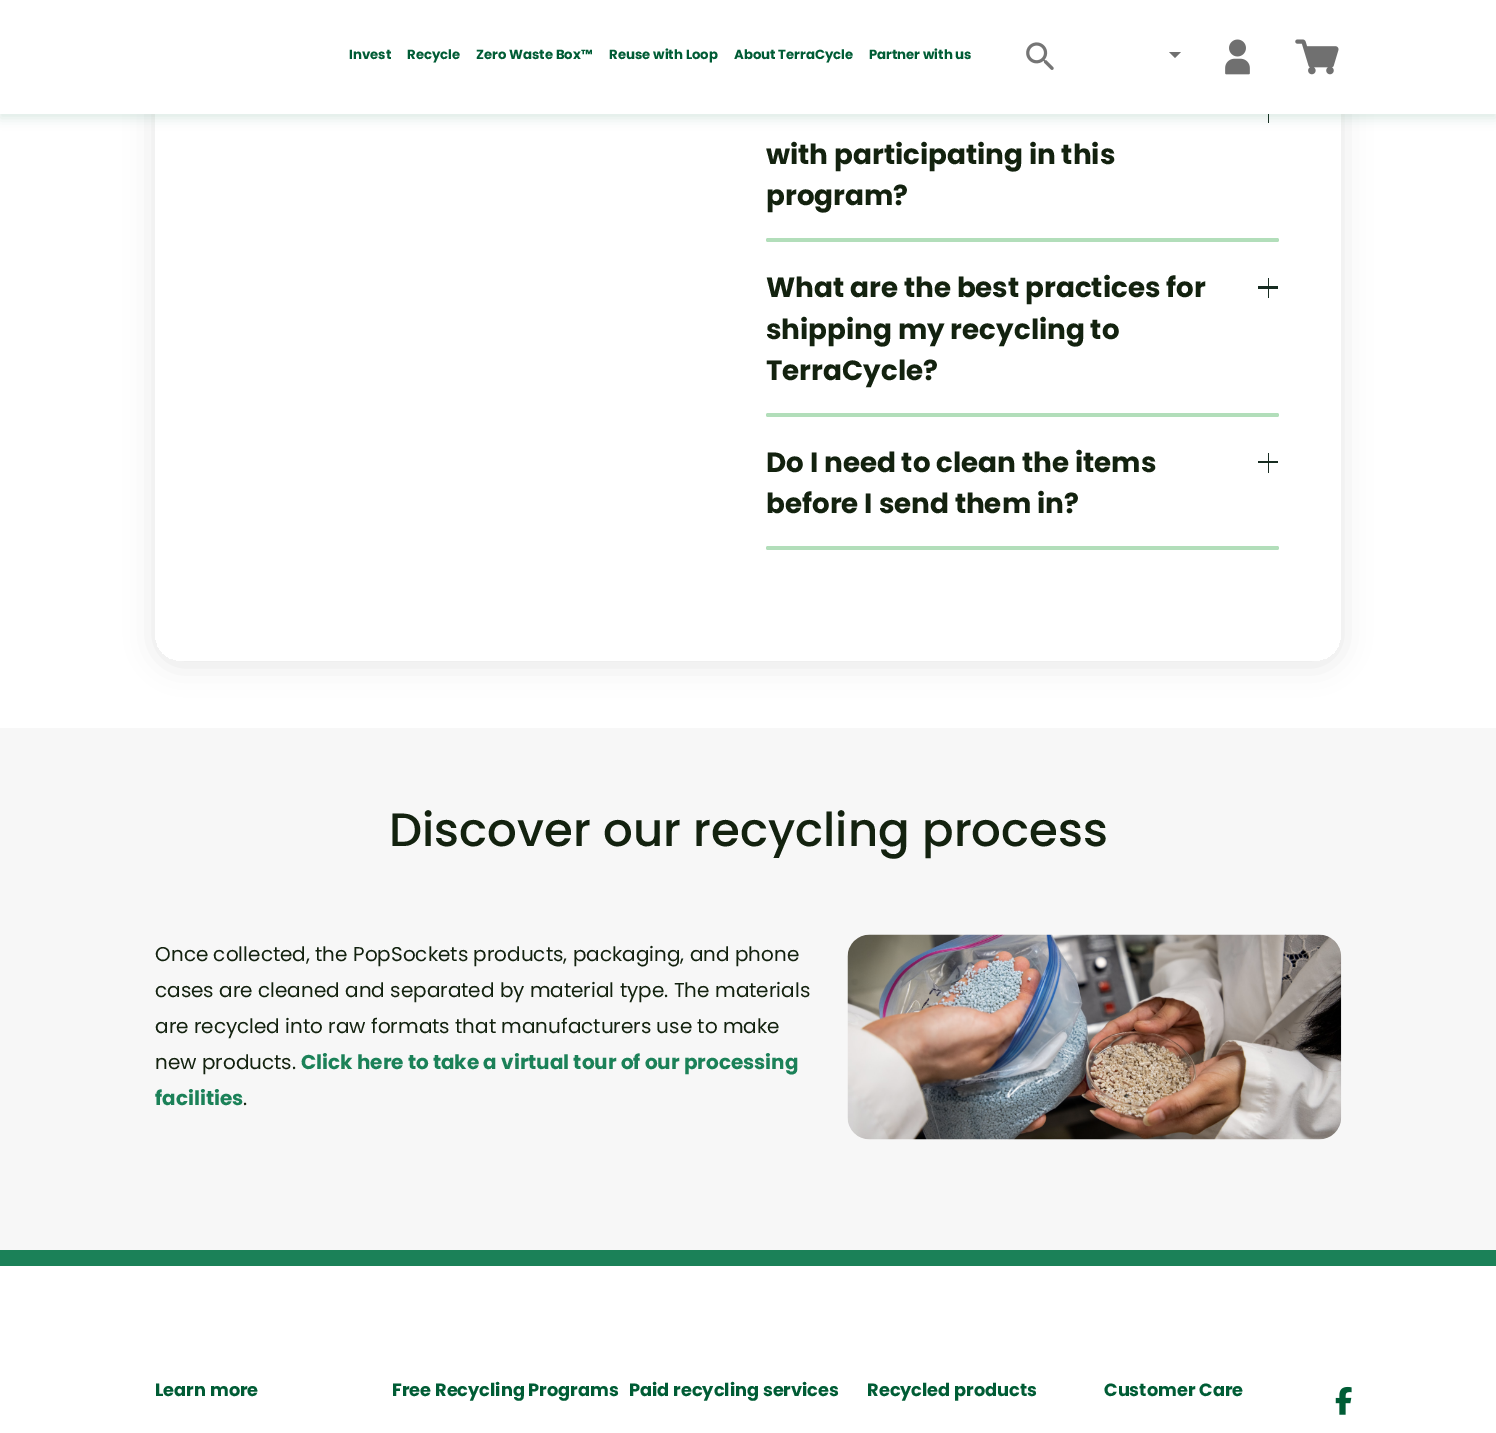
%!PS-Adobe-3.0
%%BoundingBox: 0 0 1496 1433
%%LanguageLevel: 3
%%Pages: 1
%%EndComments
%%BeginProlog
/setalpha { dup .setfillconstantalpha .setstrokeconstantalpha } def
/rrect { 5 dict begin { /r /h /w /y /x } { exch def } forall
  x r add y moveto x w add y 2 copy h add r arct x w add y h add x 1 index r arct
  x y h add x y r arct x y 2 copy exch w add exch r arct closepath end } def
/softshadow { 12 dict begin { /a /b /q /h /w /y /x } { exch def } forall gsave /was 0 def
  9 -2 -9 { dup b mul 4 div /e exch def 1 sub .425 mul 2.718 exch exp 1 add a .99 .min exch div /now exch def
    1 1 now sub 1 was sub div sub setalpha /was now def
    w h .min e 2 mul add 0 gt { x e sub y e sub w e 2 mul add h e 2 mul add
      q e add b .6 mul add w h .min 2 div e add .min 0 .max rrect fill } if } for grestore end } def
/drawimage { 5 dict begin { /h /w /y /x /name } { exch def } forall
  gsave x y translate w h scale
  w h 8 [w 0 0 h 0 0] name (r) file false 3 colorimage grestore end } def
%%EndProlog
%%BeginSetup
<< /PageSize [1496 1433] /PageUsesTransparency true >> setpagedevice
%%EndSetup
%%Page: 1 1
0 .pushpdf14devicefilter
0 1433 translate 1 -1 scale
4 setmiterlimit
1 setgray
0 0 1496 1433 rectfill
gsave
newpath 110 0 moveto 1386 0 lineto 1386 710 lineto 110 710 lineto closepath 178 -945 moveto 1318 -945 lineto 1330.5 -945 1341 -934.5 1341 -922 curveto 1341 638 lineto 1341 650.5 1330.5 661 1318 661 curveto 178 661 lineto 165.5 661 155 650.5 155 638 curveto 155 -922 lineto 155 -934.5 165.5 -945 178 -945 curveto closepath eoclip newpath
0.898 setgray
155 -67 1186 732 23 14.5 1 softshadow
grestore
0.09 0.173 0.129 setrgbcolor
1268 114 1 9 rectfill
0.106 0.447 0.271 setrgbcolor
0 4 1496 114 0 5.5 0.15 softshadow
1 setgray
0 0 1496 114 rectfill
(images/1.raw) 1026 42 28 28 drawimage
0.439 setgray
newpath 1169 52 moveto 1181 52 lineto 1175 58 lineto closepath fill
(images/2.raw) 1225 39 25 36 drawimage
(images/3.raw) 1295 39 44 36 drawimage
0.698 0.871 0.729 setrgbcolor
766 238 513 4 2 rrect fill
0.09 0.173 0.129 setrgbcolor
1268 278 1 20 rectfill
1258 286 20 3 rectfill
0.698 0.871 0.729 setrgbcolor
766 413 513 4 2 rrect fill
0.09 0.173 0.129 setrgbcolor
1268 453 1 20 rectfill
1258 461 20 2 rectfill
0.698 0.871 0.729 setrgbcolor
766 546 513 4 2 rrect fill
0.969 setgray
0 728 1496 522 rectfill
(images/4.raw) 847 934 495 206 drawimage
0.106 0.506 0.345 setrgbcolor
0 1250 1496 16 rectfill
(images/5.raw) 1335 1386 17 29 drawimage
/Poppins-Bold [13.25 0 0 -13.25 0 0] selectfont
0 0.361 0.208 setrgbcolor
349 59 moveto (Invest) show
407 59 moveto (Recycle) show
476 59 moveto (Zero Waste Box™) show
609 59 moveto (Reuse with Loop) show
734 59 moveto (About TerraCycle) show
869 59 moveto (Partner with us) show
/Poppins-Bold [27.75 0 0 -27.75 0 0] selectfont
0.075 0.133 0.059 setrgbcolor
766 164 moveto (with participating in this) show
766 205 moveto (program?) show
766 297 moveto (What are the best practices for) show
766 339 moveto (shipping my recycling to) show
766 380 moveto (TerraCycle?) show
766 472 moveto (Do I need to clean the items) show
766 513 moveto (before I send them in?) show
/Poppins-Medium [46.7 0 0 -46.7 0 0] selectfont
389 846 moveto (Discover our recycling process) show
/Poppins-Regular [20 0 0 -20 0 0] selectfont
155 961 moveto (Once collected, the PopSockets products, packaging, and phone) show
155 997 moveto (cases are cleaned and separated by material type. The materials) show
155 1033 moveto (are recycled into raw formats that manufacturers use to make) show
155 1069 moveto (new products.) show
/Poppins-Bold [20 0 0 -20 0 0] selectfont
0.106 0.506 0.345 setrgbcolor
301 1069 moveto (Click here to take a virtual tour of our processing) show
155 1105 moveto (facilities) show
/Poppins-Regular [20 0 0 -20 0 0] selectfont
0.075 0.133 0.059 setrgbcolor
243 1105 moveto (.) show
/Poppins-Bold [17.75 0 0 -17.75 0 0] selectfont
0 0.361 0.208 setrgbcolor
155 1396 moveto (Learn more) show
392 1396 moveto (Free Recycling Programs) show
629 1396 moveto (Paid recycling services) show
867 1396 moveto (Recycled products) show
1104 1396 moveto (Customer Care) show
.poppdf14devicefilter showpage
%%EOF
